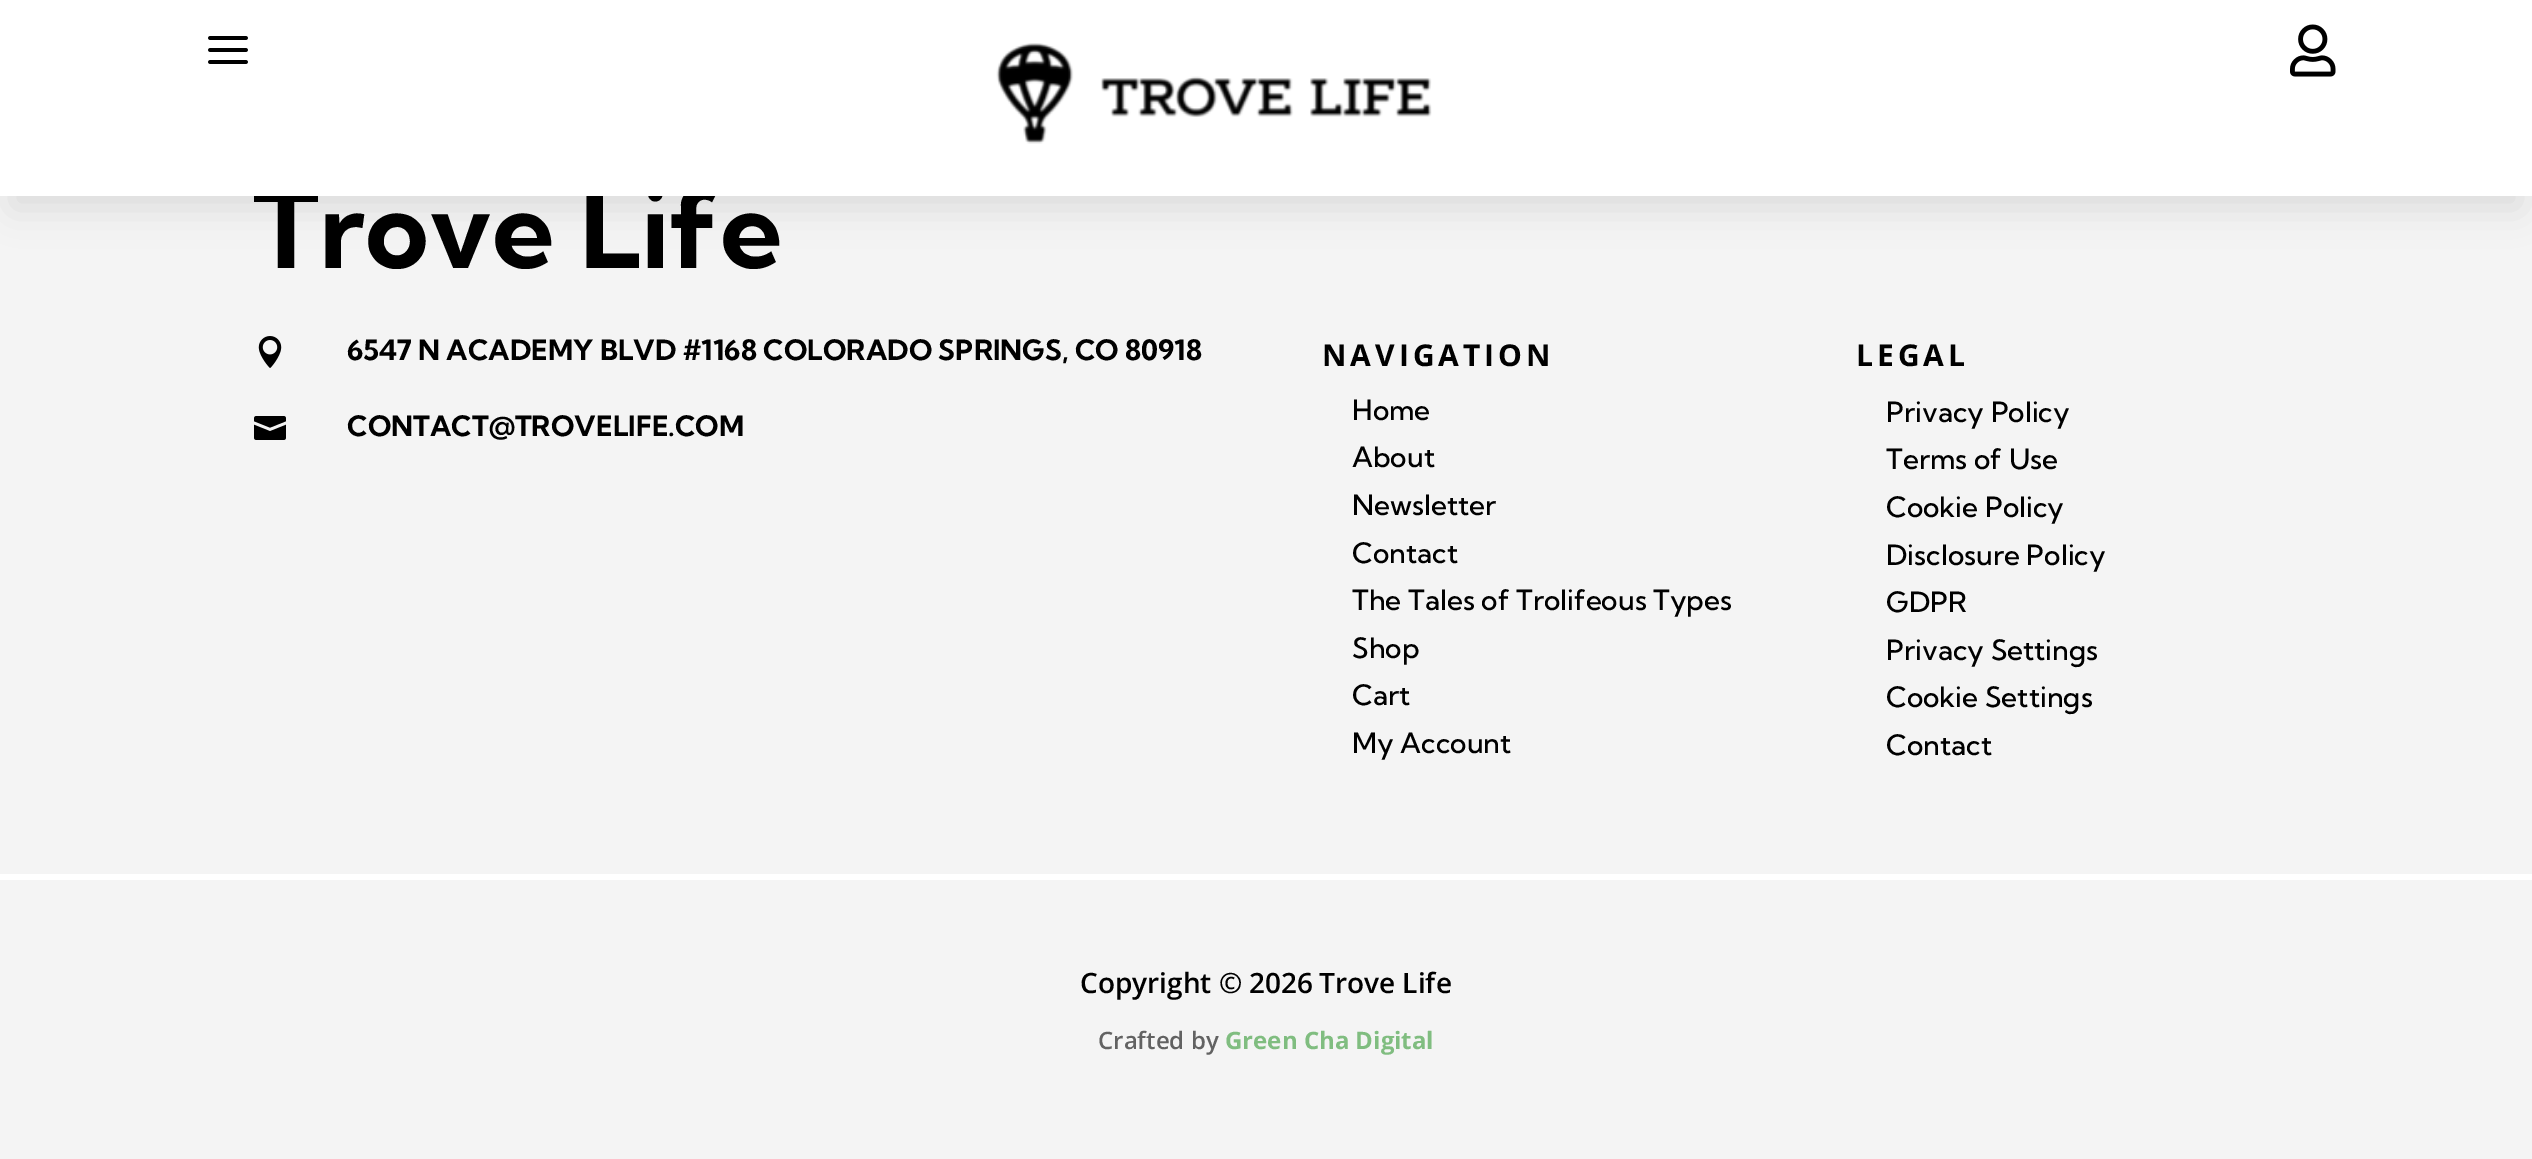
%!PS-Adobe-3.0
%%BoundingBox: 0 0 2532 1159
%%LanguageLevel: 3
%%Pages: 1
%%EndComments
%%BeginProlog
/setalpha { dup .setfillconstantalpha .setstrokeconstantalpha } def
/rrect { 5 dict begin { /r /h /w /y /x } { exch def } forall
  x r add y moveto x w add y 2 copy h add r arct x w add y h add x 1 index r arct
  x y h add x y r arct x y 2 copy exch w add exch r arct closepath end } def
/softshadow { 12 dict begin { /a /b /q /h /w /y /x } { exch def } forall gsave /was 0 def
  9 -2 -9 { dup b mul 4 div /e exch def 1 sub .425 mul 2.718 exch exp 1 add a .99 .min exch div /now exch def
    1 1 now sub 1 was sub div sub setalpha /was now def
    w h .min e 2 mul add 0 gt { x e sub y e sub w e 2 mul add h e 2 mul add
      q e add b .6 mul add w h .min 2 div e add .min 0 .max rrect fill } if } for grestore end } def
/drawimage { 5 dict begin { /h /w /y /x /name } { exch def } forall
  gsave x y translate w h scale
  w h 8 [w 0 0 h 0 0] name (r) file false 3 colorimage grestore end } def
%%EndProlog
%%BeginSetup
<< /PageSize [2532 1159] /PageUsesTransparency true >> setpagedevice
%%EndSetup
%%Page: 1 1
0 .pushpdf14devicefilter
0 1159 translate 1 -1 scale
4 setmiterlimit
0.957 setgray
0 0 2532 1159 rectfill
0 setgray
12 36 2508 172 0 18 0.1 softshadow
(images/4.raw) 258 336 24 32 drawimage
(images/5.raw) 254 416 32 24 drawimage
1 setgray
0 874 2532 6 rectfill
/KumbhSans-Bold [110 0 0 -110 0 0] selectfont
0 setgray
253 268 moveto (Trove Life) show
1 setgray
0 0 2532 196 rectfill
(images/3.raw) 2290 24 46 53 drawimage
(images/2.raw) 996 43 436 101 drawimage
(images/1.raw) 208 36 40 28 drawimage
/KumbhSans-Bold [28 0 0 -28 0 0] selectfont
0 setgray
347 360 moveto (6547 N ACADEMY BLVD #1168 COLORADO SPRINGS, CO 80918) show
347 436 moveto (CONTACT@TROVELIFE.COM) show
/OpenSans-Bold [30 0 0 -30 0 0] selectfont
1322 366 moveto 4 0 (NAVIGATION) ashow
/KumbhSans-Medium [28 0 0 -28 0 0] selectfont
1352 420 moveto (Home) show
1352 467 moveto (About) show
1352 515 moveto (Newsletter) show
1352 563 moveto (Contact) show
1352 610 moveto (The Tales of Trolifeous Types) show
1352 658 moveto (Shop) show
1352 705 moveto (Cart) show
1352 753 moveto (My Account) show
/OpenSans-Bold [30 0 0 -30 0 0] selectfont
1856 366 moveto 4 0 (LEGAL) ashow
/KumbhSans-Medium [28 0 0 -28 0 0] selectfont
1886 422 moveto (Privacy Policy) show
1886 469 moveto (Terms of Use) show
1886 517 moveto (Cookie Policy) show
1886 565 moveto (Disclosure Policy) show
1886 612 moveto (GDPR) show
1886 660 moveto (Privacy Settings) show
1886 707 moveto (Cookie Settings) show
1886 755 moveto (Contact) show
/OpenSans-SemiBold [28 0 0 -28 0 0] selectfont
1080 993 moveto (Copyright © 2026) show
1319 993 moveto (Trove Life) show
/OpenSans-SemiBold [24 0 0 -24 0 0] selectfont
0.384 setgray
1098 1049 moveto (Crafted by) show
/OpenSans-Bold [24 0 0 -24 0 0] selectfont
0.502 0.741 0.502 setrgbcolor
1225 1049 moveto (Green Cha Digital) show
.poppdf14devicefilter showpage
%%EOF
